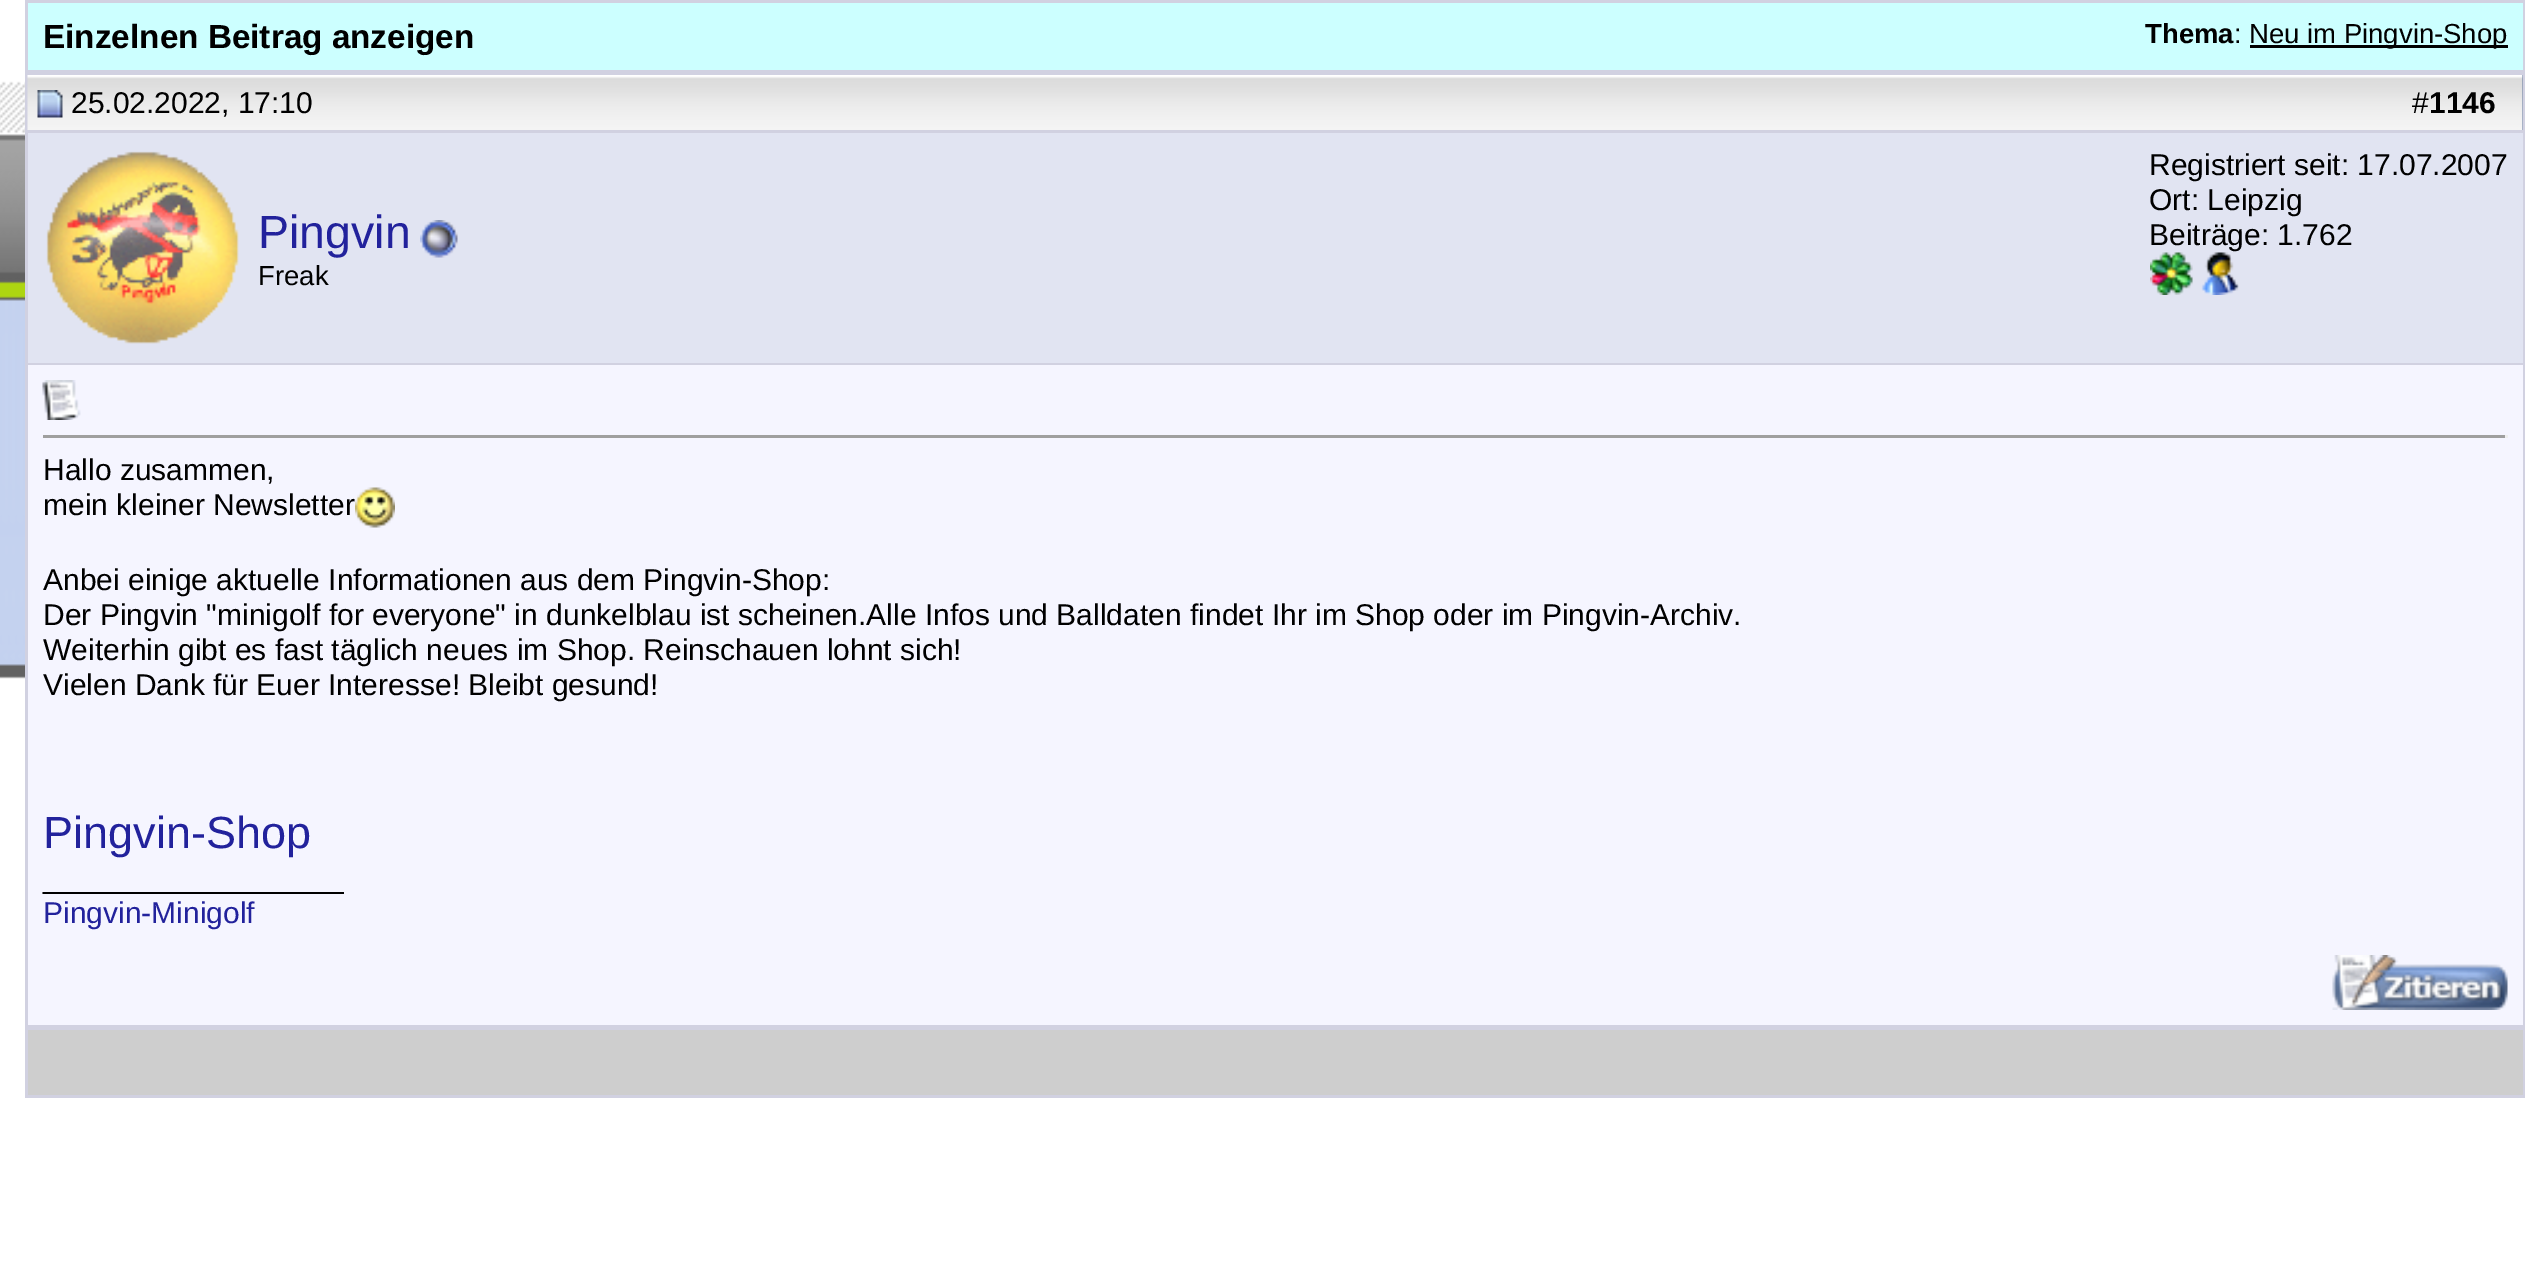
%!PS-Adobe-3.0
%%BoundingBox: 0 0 2525 1267
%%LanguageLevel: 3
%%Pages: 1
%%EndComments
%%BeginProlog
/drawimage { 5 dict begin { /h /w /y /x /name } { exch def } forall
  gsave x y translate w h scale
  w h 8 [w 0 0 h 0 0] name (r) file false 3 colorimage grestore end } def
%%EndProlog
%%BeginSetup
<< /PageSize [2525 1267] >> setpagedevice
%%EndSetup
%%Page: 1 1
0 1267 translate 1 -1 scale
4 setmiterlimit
1 setgray
0 0 2525 1267 rectfill
(images/1.raw) 0 81 25 598 drawimage
0.82 0.82 0.882 setrgbcolor
25 0 2500 1098 rectfill
0.8 1 1 setrgbcolor
28 3 2495 67 rectfill
0 setgray
2250 45 258 3 rectfill
0.361 0.439 0.6 setrgbcolor
2522 75 1 55 rectfill
(images/2.raw) 27 75 2496 55 drawimage
(images/3.raw) 37 90 26 28 drawimage
0.882 0.894 0.949 setrgbcolor
28 133 2495 230 rectfill
(images/4.raw) 46 151 193 193 drawimage
(images/5.raw) 420 220 38 38 drawimage
(images/6.raw) 2150 252 43 43 drawimage
(images/7.raw) 2201 252 38 43 drawimage
0.961 0.961 1 setrgbcolor
28 365 2495 660 rectfill
(images/8.raw) 42 380 39 40 drawimage
0.624 setgray
43 435 2465 3 rectfill
0.933 setgray
2505 435 3 3 rectfill
(images/9.raw) 355 487 40 41 drawimage
(images/10.raw) 2332 955 176 55 drawimage
0.808 setgray
28 1030 2495 65 rectfill
/LiberationSans-Bold [33.3 0 0 -33.3 0 0] selectfont
0 setgray
43 48 moveto (Einzelnen Beitrag anzeigen) show
/LiberationSans-Bold [27.5 0 0 -27.5 0 0] selectfont
2145 43 moveto (Thema) show
/LiberationSans-Regular [27.5 0 0 -27.5 0 0] selectfont
2234 43 moveto (:) show
2249 43 moveto (Neu im Pingvin-Shop) show
/LiberationSans-Regular [30 0 0 -30 0 0] selectfont
71 113 moveto (25.02.2022, 17:10) show
2412 113 moveto (#) show
/LiberationSans-Bold [30 0 0 -30 0 0] selectfont
2429 113 moveto (1146) show
/LiberationSans-Regular [46.5 0 0 -46.5 0 0] selectfont
0.133 0.133 0.612 setrgbcolor
258 248 moveto (Pingvin) show
/LiberationSans-Regular [27.5 0 0 -27.5 0 0] selectfont
0 setgray
258 285 moveto (Freak) show
/LiberationSans-Regular [30 0 0 -30 0 0] selectfont
2149 175 moveto (Registriert seit: 17.07.2007) show
2149 210 moveto (Ort: Leipzig) show
2149 245 moveto (Beiträge: 1.762) show
43 480 moveto (Hallo zusammen,) show
43 515 moveto (mein kleiner Newsletter) show
43 590 moveto (Anbei einige aktuelle Informationen aus dem Pingvin-Shop:) show
43 625 moveto (Der Pingvin "minigolf for everyone" in dunkelblau ist scheinen.Alle Infos und Balldaten findet Ihr im Shop oder im Pingvin-Archiv.) show
43 660 moveto (Weiterhin gibt es fast täglich neues im Shop. Reinschauen lohnt sich!) show
43 695 moveto (Vielen Dank für Euer Interesse! Bleibt gesund!) show
/LiberationSans-Regular [45 0 0 -45 0 0] selectfont
0.133 0.133 0.612 setrgbcolor
43 848 moveto (Pingvin-Shop) show
/LiberationSans-Regular [30 0 0 -30 0 0] selectfont
0 setgray
43 888 moveto (__________________) show
0.133 0.133 0.612 setrgbcolor
43 923 moveto (Pingvin-Minigolf) show
showpage
%%EOF
